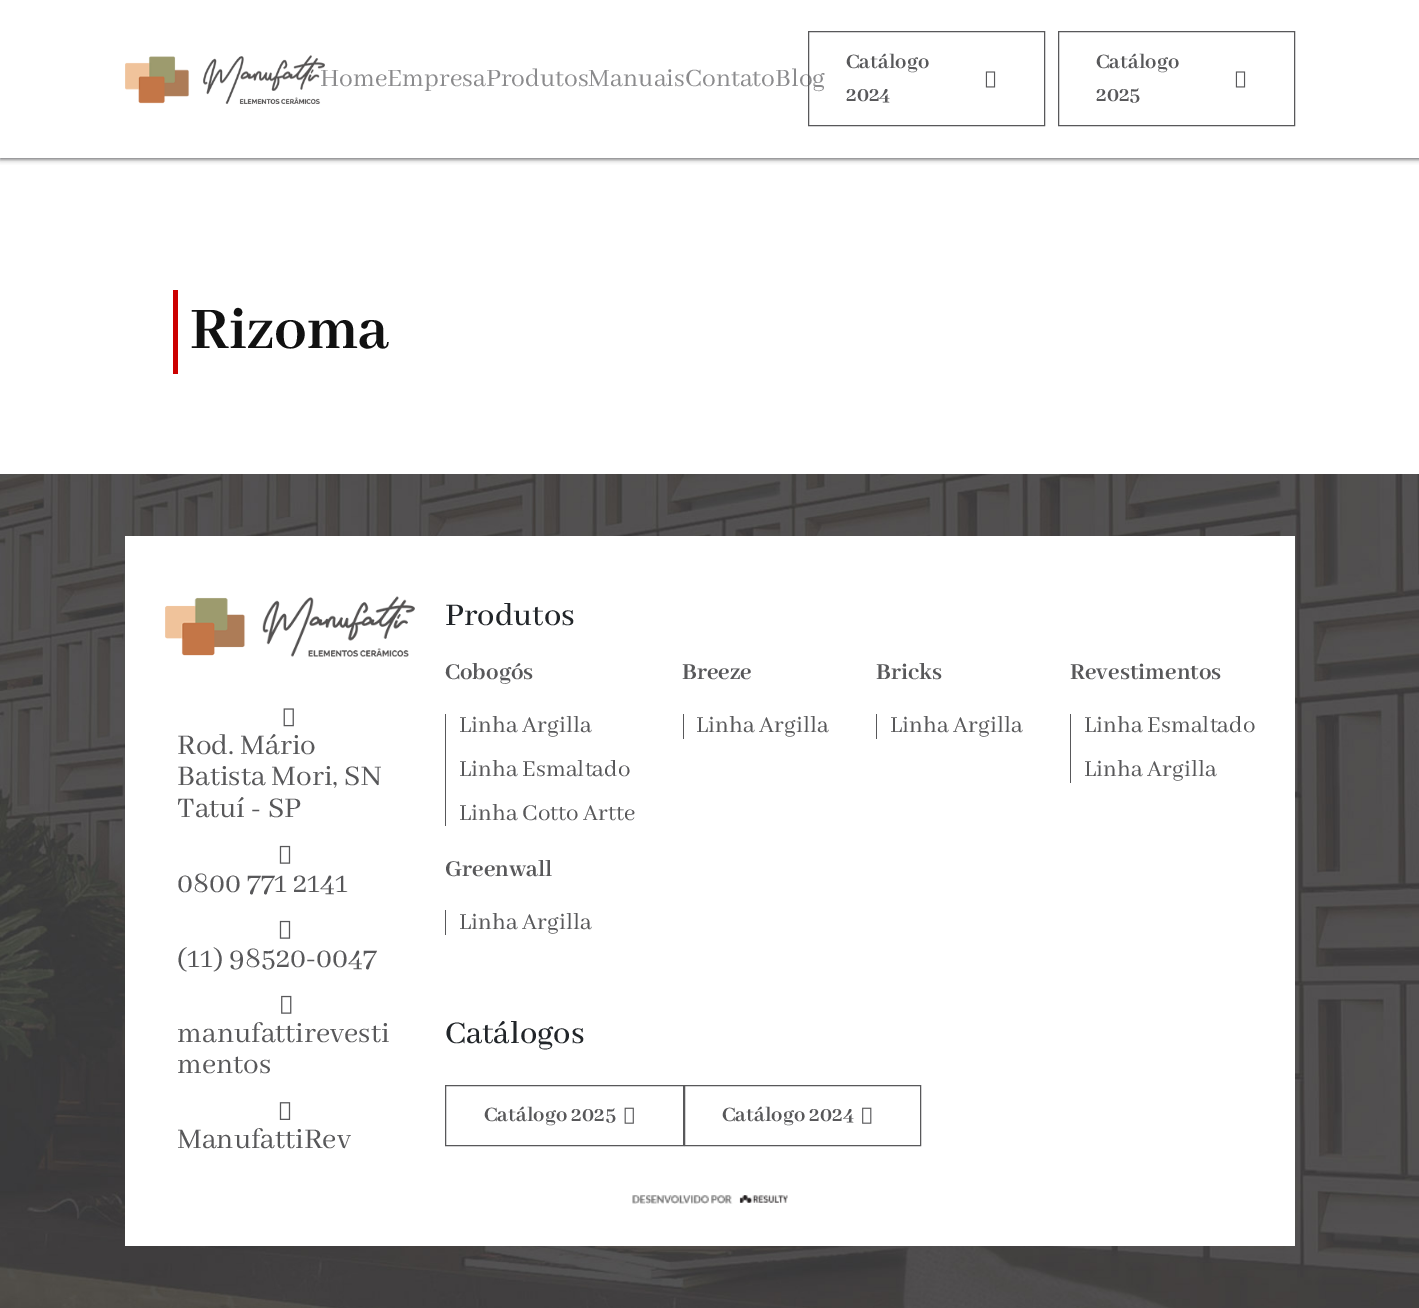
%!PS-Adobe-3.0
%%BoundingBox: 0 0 1419 1308
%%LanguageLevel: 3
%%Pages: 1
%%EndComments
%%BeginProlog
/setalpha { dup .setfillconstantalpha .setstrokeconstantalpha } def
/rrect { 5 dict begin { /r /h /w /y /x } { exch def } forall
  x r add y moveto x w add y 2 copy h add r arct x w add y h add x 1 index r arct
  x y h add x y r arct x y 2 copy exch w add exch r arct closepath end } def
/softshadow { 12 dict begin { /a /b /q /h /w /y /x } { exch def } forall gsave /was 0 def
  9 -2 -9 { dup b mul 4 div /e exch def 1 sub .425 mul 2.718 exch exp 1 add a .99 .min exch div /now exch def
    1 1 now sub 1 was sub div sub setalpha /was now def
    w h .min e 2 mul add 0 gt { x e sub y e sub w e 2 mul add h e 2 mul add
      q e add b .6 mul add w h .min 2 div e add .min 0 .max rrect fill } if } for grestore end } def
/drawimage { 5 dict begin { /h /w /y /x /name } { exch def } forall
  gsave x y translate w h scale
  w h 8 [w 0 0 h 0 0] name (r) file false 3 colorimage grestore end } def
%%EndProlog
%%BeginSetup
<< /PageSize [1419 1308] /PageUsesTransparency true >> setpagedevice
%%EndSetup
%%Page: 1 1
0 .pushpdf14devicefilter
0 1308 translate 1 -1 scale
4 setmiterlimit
1 setgray
0 0 1419 1308 rectfill
0.345 0.345 0.353 setrgbcolor
0 1 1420 158 0 2.5 1 softshadow
1 setgray
0 0 1419 158 rectfill
(images/1.raw) 125 55 200 49 drawimage
0.345 0.345 0.353 setrgbcolor
1058.5 31.5 236 94 rectstroke
(images/2.raw) 1235 71 11 17 drawimage
0.8 0 0 setrgbcolor
173 290 5 84 rectfill
(images/3.raw) 0 474 1419 834 drawimage
1 setgray
125 536 1170 710 rectfill
(images/4.raw) 165 596 250 61 drawimage
(images/5.raw) 283 708 11 19 drawimage
(images/6.raw) 279 845 12 19 drawimage
(images/6.raw) 279 920 12 19 drawimage
(images/7.raw) 281 995 11 19 drawimage
(images/8.raw) 279 1102 12 18 drawimage
0.345 0.345 0.353 setrgbcolor
445 714 1 112 rectfill
683 714 1 25 rectfill
876 714 1 25 rectfill
1070 714 1 69 rectfill
445 910 1 25 rectfill
445.5 1085.5 238 60 rectstroke
(images/9.raw) 624 1107 10 17 drawimage
684.5 1085.5 236 60 rectstroke
(images/10.raw) 862 1107 10 17 drawimage
(images/11.raw) 632 1195 156 9 drawimage
/AbhayaLibre-Regular [27.5 0 0 -27.5 0 0] selectfont
0.545 0.545 0.553 setrgbcolor
320 86 moveto (HomeEmpresaProdutosManuaisContatoBlog) show
0.345 0.345 0.353 setrgbcolor
808.5 31.5 236 94 rectstroke
/AbhayaLibre-Bold [22.5 0 0 -22.5 0 0] selectfont
846 68 moveto (Catálogo) show
(images/2.raw) 985 71 11 17 drawimage
846 101 moveto (2024) show
1096 68 moveto (Catálogo) show
1096 101 moveto (2025) show
/AbhayaLibre-Bold [65 0 0 -65 0 0] selectfont
0.067 setgray
190 348 moveto (Rizoma) show
/AbhayaLibre-Regular [31.25 0 0 -31.25 0 0] selectfont
0.345 0.345 0.353 setrgbcolor
177 754 moveto (Rod. Mário) show
177 785 moveto (Batista Mori, SN) show
177 817 moveto (Tatuí - SP) show
177 892 moveto (0800 771 2141) show
177 967 moveto (\(11\) 98520-0047) show
177 1042 moveto (manufattirevesti) show
177 1073 moveto (mentos) show
177 1148 moveto (ManufattiRev) show
/AbhayaLibreMedium-Medium [34.5 0 0 -34.5 0 0] selectfont
0.129 0.145 0.161 setrgbcolor
445 625 moveto (Produtos) show
/AbhayaLibre-Bold [25 0 0 -25 0 0] selectfont
0.345 0.345 0.353 setrgbcolor
445 679 moveto (Cobogós) show
/AbhayaLibre-Regular [25 0 0 -25 0 0] selectfont
459 732 moveto (Linha Argilla) show
459 776 moveto (Linha Esmaltado) show
459 820 moveto (Linha Cotto Artte) show
/AbhayaLibre-Bold [25 0 0 -25 0 0] selectfont
682 679 moveto (Breeze) show
/AbhayaLibre-Regular [25 0 0 -25 0 0] selectfont
696 732 moveto (Linha Argilla) show
/AbhayaLibre-Bold [25 0 0 -25 0 0] selectfont
876 679 moveto (Bricks) show
/AbhayaLibre-Regular [25 0 0 -25 0 0] selectfont
890 732 moveto (Linha Argilla) show
/AbhayaLibre-Bold [25 0 0 -25 0 0] selectfont
1070 679 moveto (Revestimentos) show
/AbhayaLibre-Regular [25 0 0 -25 0 0] selectfont
1084 732 moveto (Linha Esmaltado) show
1084 776 moveto (Linha Argilla) show
/AbhayaLibre-Bold [25 0 0 -25 0 0] selectfont
445 876 moveto (Greenwall) show
/AbhayaLibre-Regular [25 0 0 -25 0 0] selectfont
459 929 moveto (Linha Argilla) show
/AbhayaLibreMedium-Medium [34.5 0 0 -34.5 0 0] selectfont
0.129 0.145 0.161 setrgbcolor
445 1043 moveto (Catálogos) show
/AbhayaLibre-Bold [22.5 0 0 -22.5 0 0] selectfont
0.345 0.345 0.353 setrgbcolor
484 1121 moveto (Catálogo 2025) show
722 1121 moveto (Catálogo 2024) show
.poppdf14devicefilter showpage
%%EOF
